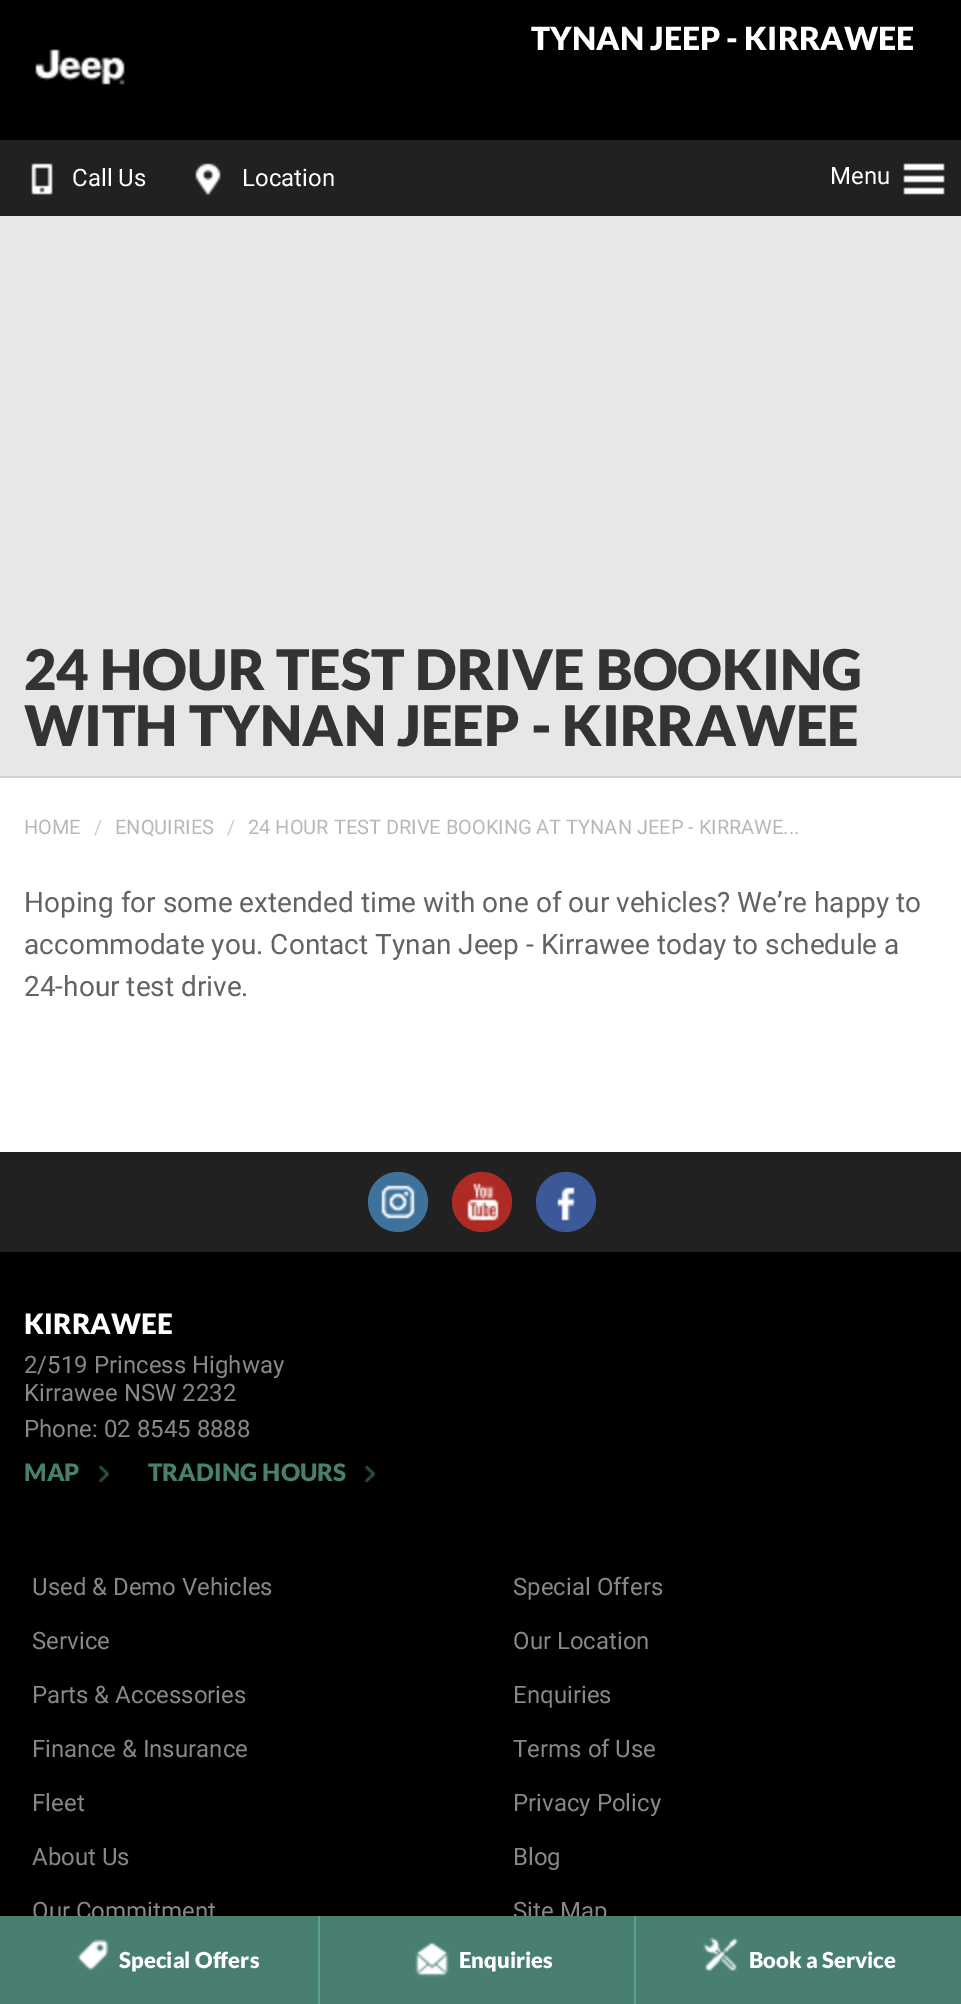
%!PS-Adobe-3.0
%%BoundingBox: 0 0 961 2004
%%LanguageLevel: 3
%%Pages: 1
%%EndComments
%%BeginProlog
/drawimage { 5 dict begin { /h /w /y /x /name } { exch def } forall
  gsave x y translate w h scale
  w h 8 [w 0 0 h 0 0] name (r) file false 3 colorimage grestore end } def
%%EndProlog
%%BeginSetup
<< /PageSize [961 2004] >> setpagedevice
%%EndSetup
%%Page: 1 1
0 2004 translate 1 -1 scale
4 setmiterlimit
1 setgray
0 0 961 2004 rectfill
0 setgray
0 0 961 140 rectfill
(images/1.raw) 35 49 90 36 drawimage
0.129 setgray
0 140 961 76 rectfill
(images/2.raw) 31 163 22 32 drawimage
(images/3.raw) 195 163 26 33 drawimage
(images/4.raw) 903 163 42 32 drawimage
0.906 setgray
0 216 961 560 rectfill
0.82 setgray
0 776 961 2 rectfill
0 setgray
0 1252 961 664 rectfill
0.129 setgray
0 1152 961 100 rectfill
0.247 0.447 0.608 setrgbcolor
newpath 398 1202 30 0 360 arc closepath fill
(images/5.raw) 381 1185 34 34 drawimage
0.682 0.169 0.145 setrgbcolor
newpath 482 1202 30 0 360 arc closepath fill
(images/6.raw) 467 1183 32 38 drawimage
0.231 0.349 0.596 setrgbcolor
newpath 566 1202 30 0 360 arc closepath fill
(images/7.raw) 557 1187 18 34 drawimage
(images/8.raw) 98 1466 12 16 drawimage
(images/8.raw) 364 1466 12 16 drawimage
/Lato-Black [32 0 0 -32 0 0] selectfont
1 setgray
531 50 moveto (TYNAN JEEP - KIRRAWEE) show
/Roboto-Regular [24 0 0 -24 0 0] selectfont
72 186 moveto (Call Us) show
242 186 moveto (Location) show
830 184 moveto (Menu) show
/Lato-Black [56 0 0 -56 0 0] selectfont
0.2 setgray
24 690 moveto (24 HOUR TEST DRIVE BOOKING) show
24 746 moveto (WITH TYNAN JEEP - KIRRAWEE) show
/Roboto-Regular [20 0 0 -20 0 0] selectfont
0.718 0.722 0.733 setrgbcolor
24 834 moveto (HOME) show
0.8 setgray
94 834 moveto (/) show
0.718 0.722 0.733 setrgbcolor
115 834 moveto (ENQUIRIES) show
0.8 setgray
227 834 moveto (/) show
0.718 0.722 0.733 setrgbcolor
248 834 moveto (24 HOUR TEST DRIVE BOOKING AT TYNAN JEEP - KIRRAWE...) show
/Roboto-Regular [28 0 0 -28 0 0] selectfont
0.388 setgray
24 912 moveto (Hoping for some extended time with one of our vehicles? We’re happy to) show
24 954 moveto (accommodate you. Contact Tynan Jeep - Kirrawee today to schedule a) show
24 996 moveto (24-hour test drive.) show
/Lato-Black [28 0 0 -28 0 0] selectfont
1 setgray
24 1334 moveto (KIRRAWEE) show
/Roboto-Regular [24 0 0 -24 0 0] selectfont
0.533 setgray
24 1373 moveto (2/519 Princess Highway) show
24 1401 moveto (Kirrawee NSW 2232) show
24 1437 moveto (Phone: 02 8545 8888) show
/Lato-Black [24 0 0 -24 0 0] selectfont
0.282 0.498 0.439 setrgbcolor
24 1481 moveto (MAP) show
148 1481 moveto 1 0 32 (TRADING HOURS) widthshow
/Roboto-Regular [24 0 0 -24 0 0] selectfont
0.533 setgray
32 1595 moveto (Used & Demo Vehicles) show
32 1649 moveto (Service) show
32 1703 moveto (Parts & Accessories) show
32 1757 moveto (Finance & Insurance) show
32 1811 moveto (Fleet) show
513 1595 moveto (Special Offers) show
513 1649 moveto (Our Location) show
513 1703 moveto (Enquiries) show
513 1757 moveto (Terms of Use) show
513 1811 moveto (Privacy Policy) show
32 1865 moveto (About Us) show
32 1919 moveto (Our Commitment) show
513 1865 moveto (Blog) show
513 1919 moveto (Site Map) show
0.282 0.498 0.439 setrgbcolor
0 1916 961 88 rectfill
0.353 0.627 0.553 setrgbcolor
318 1916 2 88 rectfill
(images/9.raw) 77 1939 32 32 drawimage
/Lato-Black [22 0 0 -22 0 0] selectfont
1 setgray
119 1968 moveto (Special Offers) show
0.353 0.627 0.553 setrgbcolor
634 1916 2 88 rectfill
(images/10.raw) 415 1941 34 36 drawimage
1 setgray
459 1968 moveto (Enquiries) show
(images/11.raw) 703 1937 36 34 drawimage
749 1968 moveto (Book a Service) show
showpage
%%EOF
